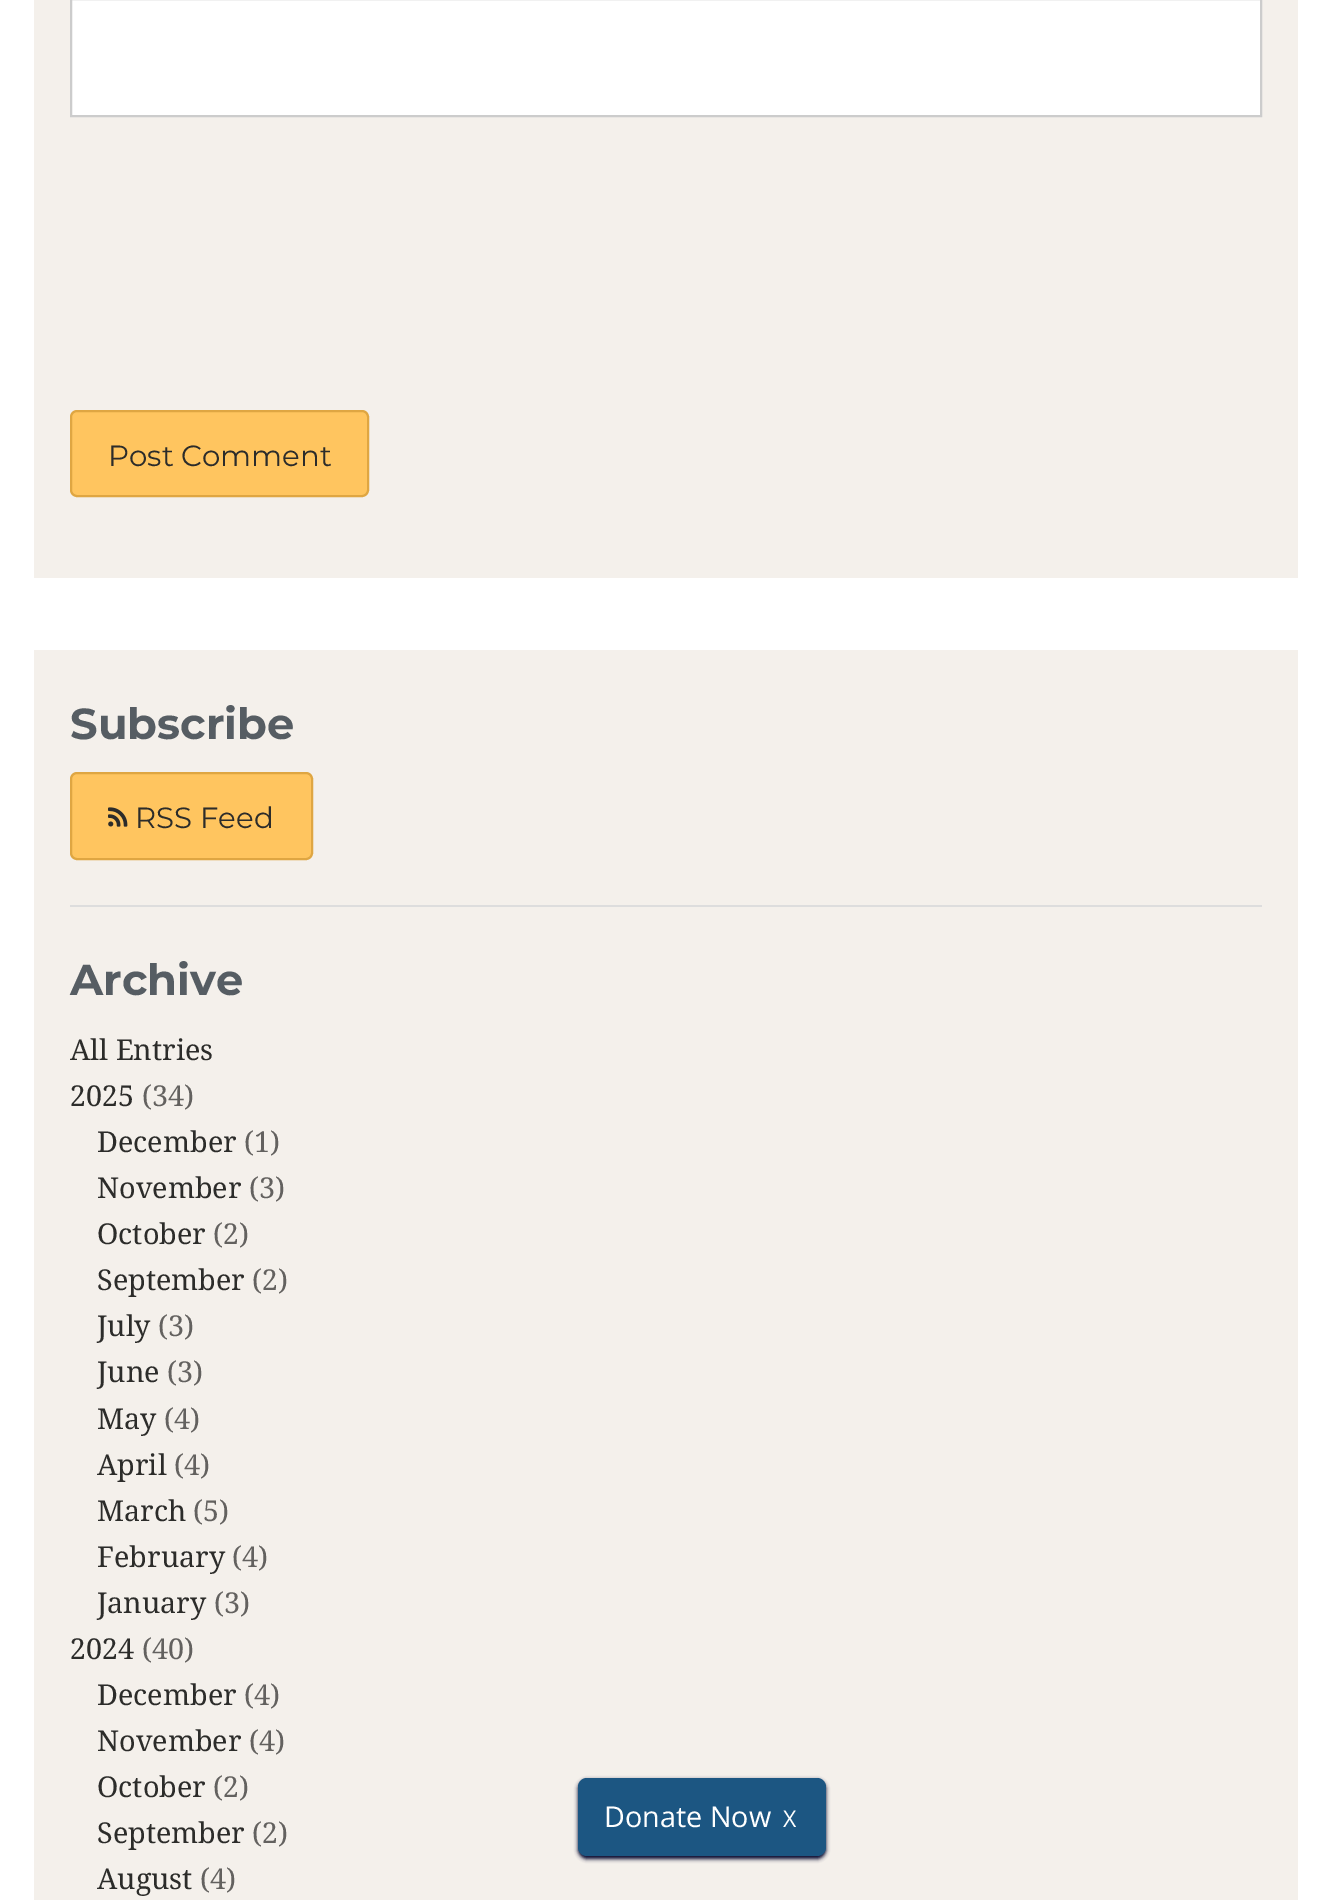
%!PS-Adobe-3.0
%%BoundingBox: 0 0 1331 1900
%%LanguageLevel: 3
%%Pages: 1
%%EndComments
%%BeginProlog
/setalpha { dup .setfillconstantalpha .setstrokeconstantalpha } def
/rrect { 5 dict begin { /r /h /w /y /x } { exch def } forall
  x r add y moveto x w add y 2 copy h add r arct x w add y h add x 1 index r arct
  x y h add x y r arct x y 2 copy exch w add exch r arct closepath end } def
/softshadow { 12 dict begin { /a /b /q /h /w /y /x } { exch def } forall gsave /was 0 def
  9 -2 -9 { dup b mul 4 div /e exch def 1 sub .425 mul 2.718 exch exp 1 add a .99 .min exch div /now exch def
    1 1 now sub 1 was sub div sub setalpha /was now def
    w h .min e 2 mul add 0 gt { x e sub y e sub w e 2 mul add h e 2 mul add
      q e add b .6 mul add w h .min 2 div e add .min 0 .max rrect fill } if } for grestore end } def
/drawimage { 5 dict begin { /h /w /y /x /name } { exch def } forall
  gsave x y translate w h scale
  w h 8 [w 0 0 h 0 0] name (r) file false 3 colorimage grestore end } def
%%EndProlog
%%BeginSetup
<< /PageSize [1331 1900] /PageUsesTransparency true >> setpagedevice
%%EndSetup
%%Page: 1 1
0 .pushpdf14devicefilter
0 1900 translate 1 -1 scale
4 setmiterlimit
1 setgray
0 0 1331 1900 rectfill
0.957 0.941 0.922 setrgbcolor
34 0 1264 578 rectfill
1 setgray
newpath 71 -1 moveto 1261 -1 lineto 1261 116 lineto 71 116 lineto closepath gsave fill grestore
0.8 setgray
2 setlinewidth
stroke
1 0.773 0.373 setrgbcolor
71 411 297 85 6 rrect gsave fill grestore
0.875 0.651 0.259 setrgbcolor
stroke
0.957 0.941 0.922 setrgbcolor
34 650 1264 1250 rectfill
1 0.773 0.373 setrgbcolor
71 773 241 86 6 rrect gsave fill grestore
0.875 0.651 0.259 setrgbcolor
stroke
(images/1.raw) 108 807 20 20 drawimage
0.867 setgray
70 905 1192 2 rectfill
0 0 0.161 setrgbcolor
578 1780 248 79 9 2 1 softshadow
0.11 0.337 0.51 setrgbcolor
578 1778 248 78 9 rrect fill
/Montserrat-Regular [29.25 0 0 -29.25 0 0] selectfont
0.173 0.173 0.165 setrgbcolor
108 466 moveto (Post Comment) show
/Montserrat-Bold [43.25 0 0 -43.25 0 0] selectfont
0.337 0.365 0.388 setrgbcolor
70 739 moveto (Subscribe) show
/Montserrat-Regular [29.25 0 0 -29.25 0 0] selectfont
0.173 0.173 0.165 setrgbcolor
135 828 moveto (RSS Feed) show
/Montserrat-Bold [43.25 0 0 -43.25 0 0] selectfont
0.337 0.365 0.388 setrgbcolor
70 995 moveto (Archive) show
/DroidSerif-Regular [28.75 0 0 -28.75 0 0] selectfont
0.173 0.173 0.165 setrgbcolor
70 1060 moveto (All Entries) show
70 1106 moveto (2025) show
0.388 0.38 0.373 setrgbcolor
142 1106 moveto (\(34\)) show
0.173 0.173 0.165 setrgbcolor
97 1152 moveto (December) show
0.388 0.38 0.373 setrgbcolor
244 1152 moveto (\(1\)) show
0.173 0.173 0.165 setrgbcolor
97 1198 moveto (November) show
0.388 0.38 0.373 setrgbcolor
249 1198 moveto (\(3\)) show
0.173 0.173 0.165 setrgbcolor
97 1244 moveto (October) show
0.388 0.38 0.373 setrgbcolor
213 1244 moveto (\(2\)) show
0.173 0.173 0.165 setrgbcolor
97 1290 moveto (September) show
0.388 0.38 0.373 setrgbcolor
252 1290 moveto (\(2\)) show
0.173 0.173 0.165 setrgbcolor
97 1336 moveto (July) show
0.388 0.38 0.373 setrgbcolor
158 1336 moveto (\(3\)) show
0.173 0.173 0.165 setrgbcolor
97 1382 moveto (June) show
0.388 0.38 0.373 setrgbcolor
167 1382 moveto (\(3\)) show
0.173 0.173 0.165 setrgbcolor
97 1429 moveto (May) show
0.388 0.38 0.373 setrgbcolor
164 1429 moveto (\(4\)) show
0.173 0.173 0.165 setrgbcolor
97 1475 moveto (April) show
0.388 0.38 0.373 setrgbcolor
174 1475 moveto (\(4\)) show
0.173 0.173 0.165 setrgbcolor
97 1521 moveto (March) show
0.388 0.38 0.373 setrgbcolor
193 1521 moveto (\(5\)) show
0.173 0.173 0.165 setrgbcolor
97 1567 moveto (February) show
0.388 0.38 0.373 setrgbcolor
232 1567 moveto (\(4\)) show
0.173 0.173 0.165 setrgbcolor
97 1613 moveto (January) show
0.388 0.38 0.373 setrgbcolor
214 1613 moveto (\(3\)) show
0.173 0.173 0.165 setrgbcolor
70 1659 moveto (2024) show
0.388 0.38 0.373 setrgbcolor
142 1659 moveto (\(40\)) show
0.173 0.173 0.165 setrgbcolor
97 1705 moveto (December) show
0.388 0.38 0.373 setrgbcolor
244 1705 moveto (\(4\)) show
0.173 0.173 0.165 setrgbcolor
97 1751 moveto (November) show
0.388 0.38 0.373 setrgbcolor
249 1751 moveto (\(4\)) show
0.173 0.173 0.165 setrgbcolor
97 1797 moveto (October) show
0.388 0.38 0.373 setrgbcolor
213 1797 moveto (\(2\)) show
0.173 0.173 0.165 setrgbcolor
97 1843 moveto (September) show
0.388 0.38 0.373 setrgbcolor
252 1843 moveto (\(2\)) show
0.173 0.173 0.165 setrgbcolor
97 1889 moveto (August) show
0.388 0.38 0.373 setrgbcolor
200 1889 moveto (\(4\)) show
/OpenSans-Regular [28.75 0 0 -28.75 0 0] selectfont
1 setgray
604 1827 moveto (Donate Now) show
/OpenSans-Regular [23 0 0 -23 0 0] selectfont
783 1827 moveto (X) show
.poppdf14devicefilter showpage
%%EOF
